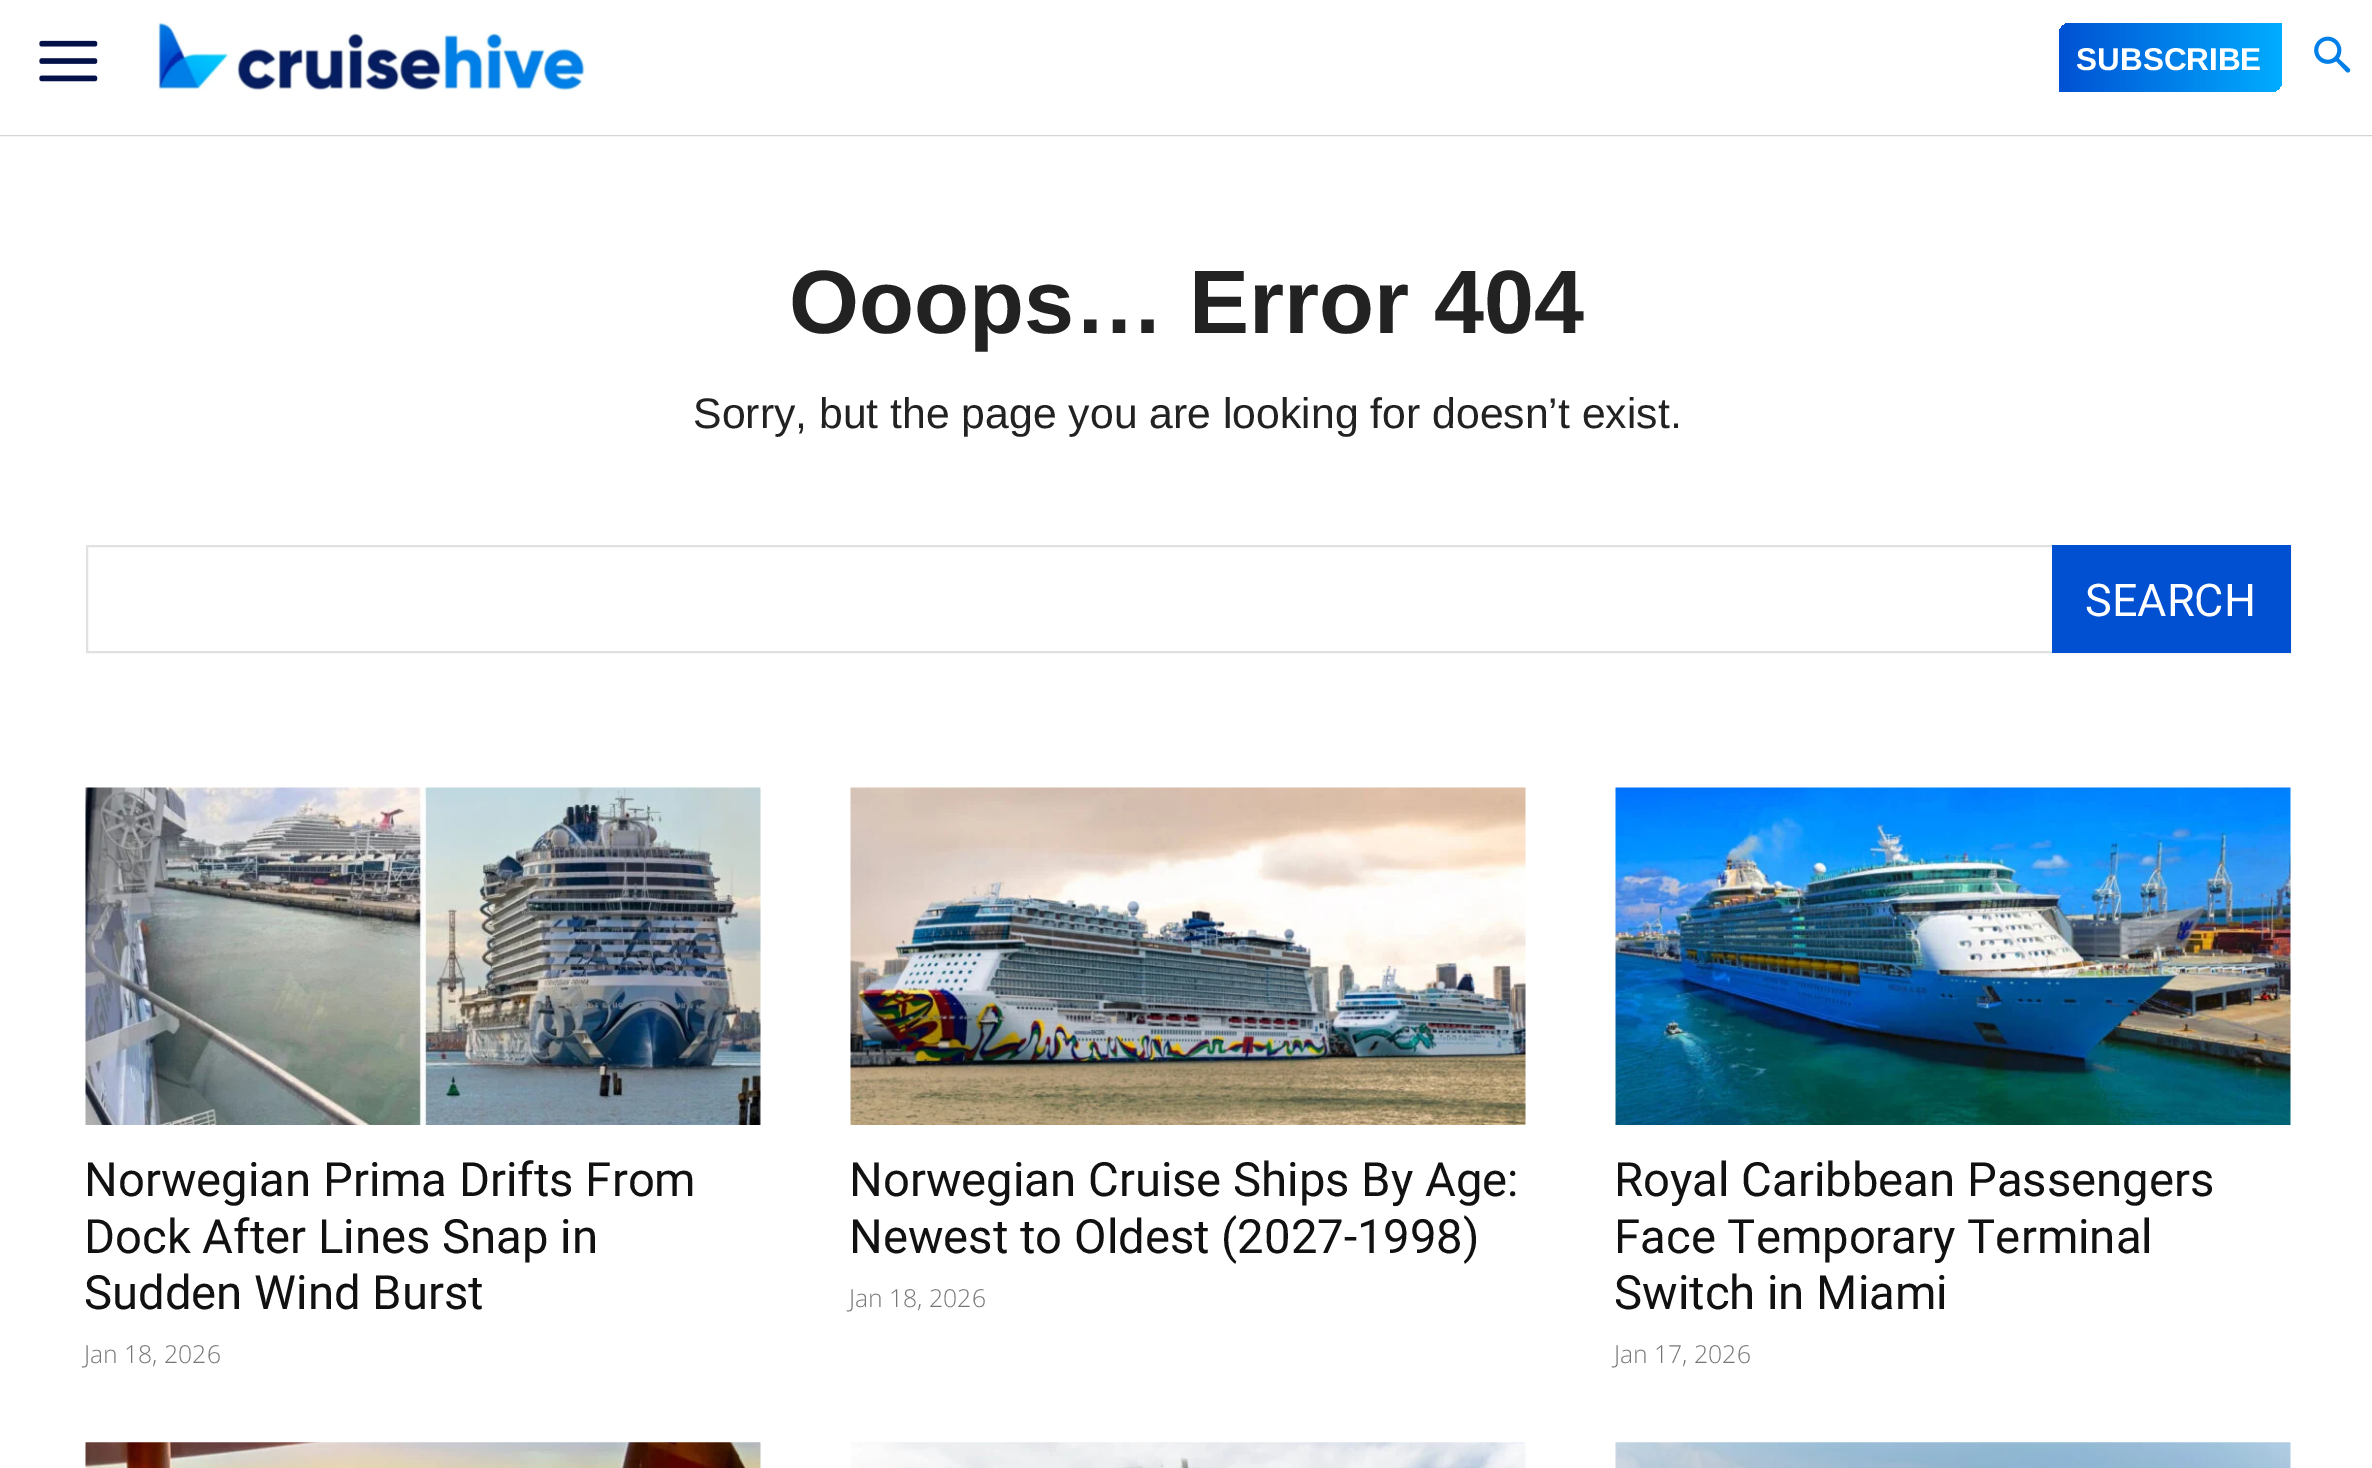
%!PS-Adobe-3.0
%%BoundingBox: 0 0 2372 1468
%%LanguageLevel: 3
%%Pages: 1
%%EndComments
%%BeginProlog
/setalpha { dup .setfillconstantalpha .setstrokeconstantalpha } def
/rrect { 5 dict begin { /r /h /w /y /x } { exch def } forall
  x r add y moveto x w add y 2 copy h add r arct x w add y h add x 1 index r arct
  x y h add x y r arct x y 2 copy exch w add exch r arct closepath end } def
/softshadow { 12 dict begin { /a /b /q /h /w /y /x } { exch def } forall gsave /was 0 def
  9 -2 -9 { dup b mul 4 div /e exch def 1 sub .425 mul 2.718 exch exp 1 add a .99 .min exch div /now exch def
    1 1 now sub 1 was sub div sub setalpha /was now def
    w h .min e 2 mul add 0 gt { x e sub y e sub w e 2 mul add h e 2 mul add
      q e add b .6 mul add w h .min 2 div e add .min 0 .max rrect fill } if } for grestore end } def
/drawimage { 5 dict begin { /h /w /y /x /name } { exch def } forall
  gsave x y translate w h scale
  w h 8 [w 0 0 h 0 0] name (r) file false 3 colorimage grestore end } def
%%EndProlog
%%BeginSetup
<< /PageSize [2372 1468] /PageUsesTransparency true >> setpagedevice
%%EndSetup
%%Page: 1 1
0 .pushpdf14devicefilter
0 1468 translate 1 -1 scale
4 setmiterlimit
1 setgray
0 0 2372 1468 rectfill
(images/1.raw) 39 40 59 42 drawimage
(images/2.raw) 158 22 428 69 drawimage
gsave newpath 2070 23 moveto 2282 23 lineto 2282 81 lineto 2282 87 2277 92 2271 92 curveto 2059 92 lineto 2059 34 lineto 2059 28 2064 23 2070 23 curveto closepath clip newpath
<< /ShadingType 2 /ColorSpace /DeviceRGB /Coords [2280 57 2058 57] /Extend [true true] /Function << /FunctionType 2 /Domain [0 1] /C0 [0 0.675 1] /C1 [0 0.318 0.827] /N 1 >> >> shfill grestore
gsave
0 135 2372 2 rectclip
0.459 setgray
0 0 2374 135 0 1 1 softshadow
grestore
(images/3.raw) 2314 36 37 37 drawimage
0.882 setgray
2 setlinewidth
87 546 2203 106 rectstroke
0 0.314 0.82 setrgbcolor
2052 545 239 108 rectfill
(images/4.raw) 85 787 676 338 drawimage
(images/5.raw) 850 787 676 338 drawimage
(images/6.raw) 1615 787 676 338 drawimage
(images/7.raw) 85 1442 676 26 drawimage
(images/8.raw) 851 1442 675 26 drawimage
(images/9.raw) 1615 1442 676 26 drawimage
/LiberationSans-Bold [31.5 0 0 -31.5 0 0] selectfont
1 setgray
2076 70 moveto (SUBSCRIBE) show
/LiberationSans-Bold [90 0 0 -90 0 0] selectfont
0.133 setgray
789 333 moveto (Ooops… Error 404) show
/LiberationSans-Regular [42.75 0 0 -42.75 0 0] selectfont
693 428 moveto (Sorry, but the page you are looking for doesn’t exist.) show
/Roboto-Regular [45 0 0 -45 0 0] selectfont
1 setgray
2085 616 moveto (SEARCH) show
/Roboto-Regular [47.25 0 0 -47.25 0 0] selectfont
0.067 setgray
84 1196 moveto (Norwegian Prima Drifts From) show
84 1253 moveto (Dock After Lines Snap in) show
84 1309 moveto (Sudden Wind Burst) show
/OpenSans-Light [24.75 0 0 -24.75 0 0] selectfont
0.463 setgray
84 1363 moveto (Jan 18, 2026) show
/Roboto-Regular [47.25 0 0 -47.25 0 0] selectfont
0.067 setgray
849 1196 moveto (Norwegian Cruise Ships By Age:) show
849 1253 moveto (Newest to Oldest \(2027-1998\)) show
/OpenSans-Light [24.75 0 0 -24.75 0 0] selectfont
0.463 setgray
849 1307 moveto (Jan 18, 2026) show
/Roboto-Regular [47.25 0 0 -47.25 0 0] selectfont
0.067 setgray
1614 1196 moveto (Royal Caribbean Passengers) show
1614 1253 moveto (Face Temporary Terminal) show
1614 1309 moveto (Switch in Miami) show
/OpenSans-Light [24.75 0 0 -24.75 0 0] selectfont
0.463 setgray
1614 1363 moveto (Jan 17, 2026) show
.poppdf14devicefilter showpage
%%EOF
